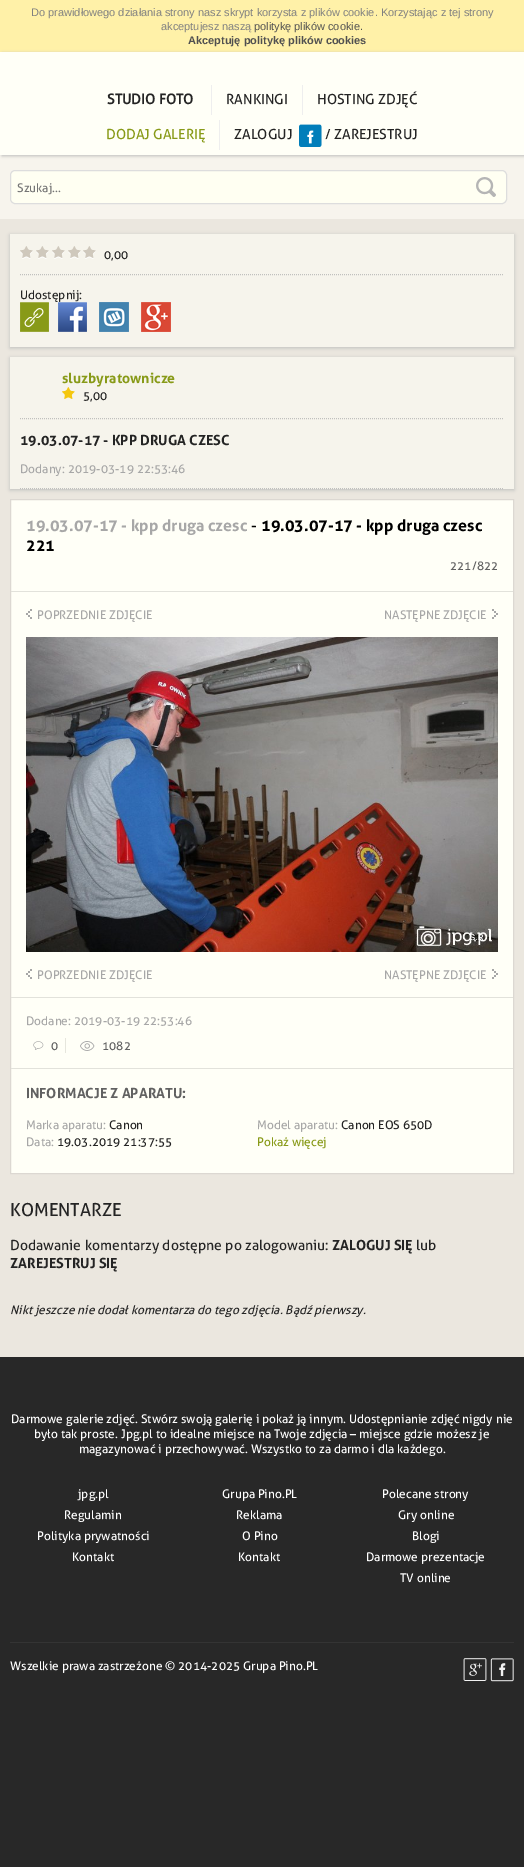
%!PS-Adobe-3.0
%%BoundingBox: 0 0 524 1867
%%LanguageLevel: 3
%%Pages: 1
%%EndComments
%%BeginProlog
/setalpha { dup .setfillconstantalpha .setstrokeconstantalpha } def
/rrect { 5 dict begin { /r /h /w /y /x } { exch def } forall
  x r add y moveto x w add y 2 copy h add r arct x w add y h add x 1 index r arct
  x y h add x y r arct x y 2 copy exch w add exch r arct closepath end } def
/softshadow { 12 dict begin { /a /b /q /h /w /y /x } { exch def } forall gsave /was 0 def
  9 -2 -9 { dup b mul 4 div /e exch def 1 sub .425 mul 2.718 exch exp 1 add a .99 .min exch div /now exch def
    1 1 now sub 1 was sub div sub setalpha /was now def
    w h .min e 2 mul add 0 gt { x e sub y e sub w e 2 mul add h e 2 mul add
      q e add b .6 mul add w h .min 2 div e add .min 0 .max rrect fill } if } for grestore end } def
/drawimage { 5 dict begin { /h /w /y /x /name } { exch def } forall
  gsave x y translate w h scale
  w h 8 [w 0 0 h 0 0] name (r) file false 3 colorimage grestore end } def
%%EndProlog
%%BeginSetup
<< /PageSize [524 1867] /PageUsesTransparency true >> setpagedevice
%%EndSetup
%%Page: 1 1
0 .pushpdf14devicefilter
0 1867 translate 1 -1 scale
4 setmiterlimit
0.157 setgray
0 0 524 1867 rectfill
1 0.945 0.659 setrgbcolor
0 0 524 52 rectfill
0.969 0.957 0.929 setrgbcolor
0 155 524 64 rectfill
0.741 setgray
2 53 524 103 0 1.5 1 softshadow
1 1 0.969 setrgbcolor
0 52 524 103 rectfill
0.933 setgray
211 85 1 30 rectfill
302 85 1 30 rectfill
219 120 1 30 rectfill
(images/1.raw) 299 124 23 23 drawimage
0.922 0.906 0.875 setrgbcolor
0 219 524 1138 rectfill
1 1 0.949 setrgbcolor
10.5 170.5 496 33 4.5 rrect gsave fill grestore
0.867 setgray
stroke
(images/2.raw) 476 177 20 20 drawimage
0.741 setgray
10 235 504 113 0 2 1 softshadow
0.965 0.957 0.925 setrgbcolor
10 234 504 113 rectfill
0.753 0.753 0.745 setrgbcolor
[1 1] 0 setdash
newpath 20 274.5 moveto 504 274.5 lineto stroke
(images/3.raw) 20 246 13 13 drawimage
(images/3.raw) 36 246 13 13 drawimage
(images/3.raw) 52 246 13 13 drawimage
(images/3.raw) 68 246 13 13 drawimage
(images/3.raw) 83 246 13 13 drawimage
(images/4.raw) 20 302 29 30 drawimage
(images/5.raw) 58 302 29 30 drawimage
(images/6.raw) 99 302 30 30 drawimage
(images/7.raw) 141 302 30 30 drawimage
0.741 setgray
10 358 504 132 0 2 1 softshadow
0.965 0.957 0.925 setrgbcolor
10 357 504 132 rectfill
0.753 0.753 0.745 setrgbcolor
newpath 20 418.5 moveto 504 418.5 lineto stroke
(images/8.raw) 62 387 13 12 drawimage
newpath 20 488.5 moveto 504 488.5 lineto stroke
1 1 0.969 setrgbcolor
newpath 10.5 499.5 moveto 513.5 499.5 lineto 513.5 1173.5 lineto 10.5 1173.5 lineto closepath gsave fill grestore
0.863 0.847 0.824 setrgbcolor
[] 0 setdash
stroke
0.886 0.886 0.859 setrgbcolor
11 591 502 1 rectfill
11 997 502 1 rectfill
(images/9.raw) 26 609 6 10 drawimage
(images/10.raw) 492 609 6 10 drawimage
(images/11.raw) 26 637 472 315 drawimage
(images/9.raw) 26 969 6 10 drawimage
(images/10.raw) 492 969 6 10 drawimage
11 1068 502 1 rectfill
0.902 0.902 0.867 setrgbcolor
65 1038 1 15 rectfill
(images/12.raw) 33 1041 11 9 drawimage
(images/13.raw) 80 1041 15 10 drawimage
0.204 setgray
10 1642 504 1 rectfill
(images/14.raw) 463 1658 24 23 drawimage
(images/15.raw) 490 1658 24 24 drawimage
/LiberationSans-Regular [11 0 0 -11 0 0] selectfont
0.502 setgray
31 16 moveto (Do prawidłowego działania strony nasz skrypt korzysta z plików cookie. Korzystając z tej strony) show
161 30 moveto (akceptujesz naszą) show
0.314 setgray
254 30 moveto (politykę plików cookie.) show
/LiberationSans-Bold [11 0 0 -11 0 0] selectfont
188 44 moveto (Akceptuję politykę plików cookies) show
/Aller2-Bold [14 0 0 -14 0 0] selectfont
0.141 setgray
107 104 moveto (STUDIO FOTO) show
/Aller-Regular [14 0 0 -14 0 0] selectfont
226 104 moveto (RANKINGI) show
317 104 moveto (HOSTING ZDJĘĆ) show
0.533 0.604 0.094 setrgbcolor
106 139 moveto (DODAJ GALERIĘ) show
0.141 setgray
234 139 moveto (ZALOGUJ) show
325 139 moveto (/ ZAREJESTRUJ) show
/Aller-Regular [12 0 0 -12 0 0] selectfont
0.459 setgray
17 192 moveto (Szukaj...) show
0.141 setgray
104 259 moveto (0,00) show
20 299 moveto (Udostępnij:) show
/Aller-Bold [14 0 0 -14 0 0] selectfont
0.533 0.604 0.094 setrgbcolor
62 383 moveto (sluzbyratownicze) show
/Aller-Regular [12 0 0 -12 0 0] selectfont
0.141 setgray
83 400 moveto (5,00) show
/Aller-Bold [14 0 0 -14 0 0] selectfont
20 445 moveto (19.03.07-17 - KPP DRUGA CZESC) show
/Aller-Regular [12 0 0 -12 0 0] selectfont
0.655 setgray
20 473 moveto (Dodany: 2019-03-19 22:53:46) show
/Aller-Bold [16 0 0 -16 0 0] selectfont
26 531 moveto (19.03.07-17 - kpp druga czesc) show
/Aller-Regular [16 0 0 -16 0 0] selectfont
0 setgray
251 531 moveto (-) show
/Aller-Bold [16 0 0 -16 0 0] selectfont
261 531 moveto (19.03.07-17 - kpp druga czesc) show
26 551 moveto (221) show
/Aller-Regular [12 0 0 -12 0 0] selectfont
0.38 setgray
450 570 moveto (221/822) show
0.655 setgray
37 619 moveto (POPRZEDNIE ZDJĘCIE) show
384 619 moveto (NASTĘPNE ZDJĘCIE) show
37 979 moveto (POPRZEDNIE ZDJĘCIE) show
384 979 moveto (NASTĘPNE ZDJĘCIE) show
26 1025 moveto (Dodane: 2019-03-19 22:53:46) show
0.38 setgray
51 1050 moveto (0) show
102 1050 moveto (1082) show
/Aller-Bold [14 0 0 -14 0 0] selectfont
26 1098 moveto (INFORMACJE Z APARATU:) show
/Aller-Regular [12 0 0 -12 0 0] selectfont
0.655 setgray
26 1129 moveto (Marka aparatu:) show
0.141 setgray
109 1129 moveto (Canon) show
0.655 setgray
257 1129 moveto (Model aparatu:) show
0.141 setgray
341 1129 moveto (Canon EOS 650D) show
0.655 setgray
26 1146 moveto (Data:) show
0.141 setgray
57 1146 moveto (19.03.2019 21:37:55) show
0.533 0.604 0.094 setrgbcolor
257 1146 moveto (Pokaż więcej) show
/Aller-Regular [18 0 0 -18 0 0] selectfont
0.141 setgray
10 1216 moveto (KOMENTARZE) show
/Aller-Regular [14 0 0 -14 0 0] selectfont
10 1250 moveto (Dodawanie komentarzy dostępne po zalogowaniu:) show
/Aller-Bold [14 0 0 -14 0 0] selectfont
332 1250 moveto (ZALOGUJ SIĘ) show
/Aller-Regular [14 0 0 -14 0 0] selectfont
416 1250 moveto (lub) show
/Aller-Bold [14 0 0 -14 0 0] selectfont
10 1268 moveto (ZAREJESTRUJ SIĘ) show
/Aller-Italic [12 0 0 -12 0 0] selectfont
10 1314 moveto (Nikt jeszcze nie dodał komentarza do tego zdjęcia. Bądź pierwszy.) show
/Aller-Regular [12 0 0 -12 0 0] selectfont
1 setgray
11 1423 moveto (Darmowe galerie zdjęć. Stwórz swoją galerię i pokaż ją innym. Udostępnianie zdjęć nigdy nie) show
34 1438 moveto (było tak proste. Jpg.pl to idealne miejsce na Twoje zdjęcia – miejsce gdzie możesz je) show
79 1453 moveto (magazynować i przechowywać. Wszystko to za darmo i dla każdego.) show
78 1498 moveto (jpg.pl) show
64 1519 moveto (Regulamin) show
37 1540 moveto (Polityka prywatności) show
72 1561 moveto (Kontakt) show
222 1498 moveto (Grupa Pino.PL) show
236 1519 moveto (Reklama) show
242 1540 moveto (O Pino) show
238 1561 moveto (Kontakt) show
382 1498 moveto (Polecane strony) show
398 1519 moveto (Gry online) show
412 1540 moveto (Blogi) show
366 1561 moveto (Darmowe prezentacje) show
400 1582 moveto (TV online) show
10 1670 moveto (Wszelkie prawa zastrzeżone © 2014-2025 Grupa Pino.PL) show
.poppdf14devicefilter showpage
%%EOF
